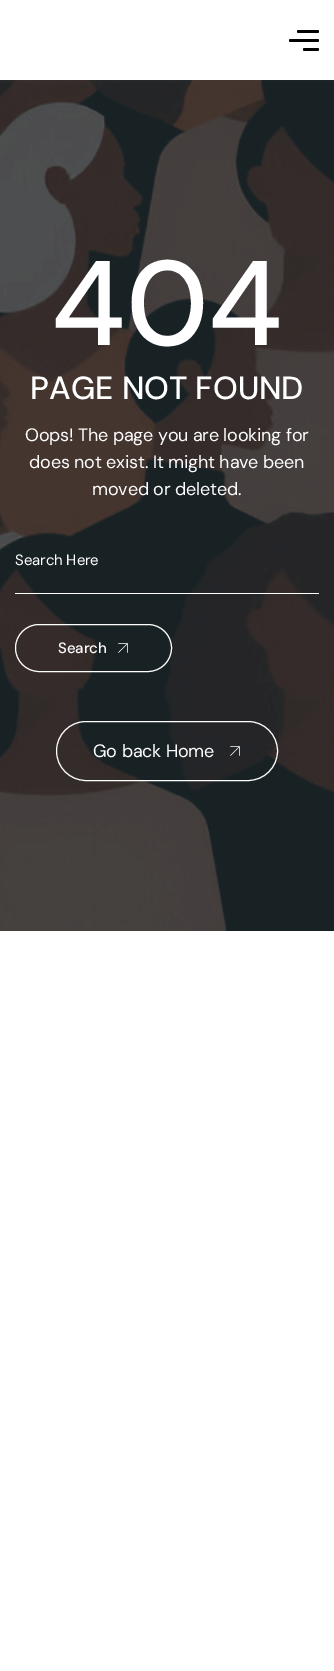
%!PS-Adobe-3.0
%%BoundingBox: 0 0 334 1671
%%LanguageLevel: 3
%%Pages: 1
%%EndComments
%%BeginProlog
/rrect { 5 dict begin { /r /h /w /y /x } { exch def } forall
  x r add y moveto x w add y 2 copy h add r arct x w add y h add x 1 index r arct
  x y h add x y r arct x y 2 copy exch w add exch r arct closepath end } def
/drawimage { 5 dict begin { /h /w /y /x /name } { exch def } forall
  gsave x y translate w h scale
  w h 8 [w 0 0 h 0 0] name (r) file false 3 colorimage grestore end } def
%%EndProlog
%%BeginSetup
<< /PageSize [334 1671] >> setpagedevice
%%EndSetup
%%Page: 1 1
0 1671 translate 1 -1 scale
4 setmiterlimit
1 setgray
0 0 334 1671 rectfill
0 setgray
297 30 22 3 1.5 rrect fill
289 39 30 3 1.5 rrect fill
303 48 16 3 1.5 rrect fill
0.133 0.188 0.208 setrgbcolor
0 80 334 851 rectfill
(images/1.raw) 0 80 334 851 drawimage
1 setgray
15 593 304 1 rectfill
15.5 624.5 156 47 23.5 rrect stroke
(images/2.raw) 118 643 10 10 drawimage
(images/3.raw) 230 746 10 10 drawimage
56.5 721.5 221 59 29.5 rrect stroke
/DMSans-Medium [120 0 0 -120 0 0] selectfont
51 345 moveto (404) show
/DMSans-Medium [32 0 0 -32 0 0] selectfont
30 399 moveto (PAGE NOT FOUND) show
/DMSans-Regular [18 0 0 -18 0 0] selectfont
25 441 moveto -0.2 0 (Oops! The page you are looking for) ashow
29 468 moveto -0.2 0 (does not exist. It might have been) ashow
92 495 moveto -0.2 0 (moved or deleted.) ashow
/DMSans-Regular [15 0 0 -15 0 0] selectfont
15 565 moveto -0.1 0 (Search Here) ashow
/DMSans-Medium [15 0 0 -15 0 0] selectfont
58 653 moveto -0.1 0 (Search) ashow
/DMSans-Regular [18 0 0 -18 0 0] selectfont
93 757 moveto -0.2 0 (Go back Home) ashow
showpage
%%EOF
